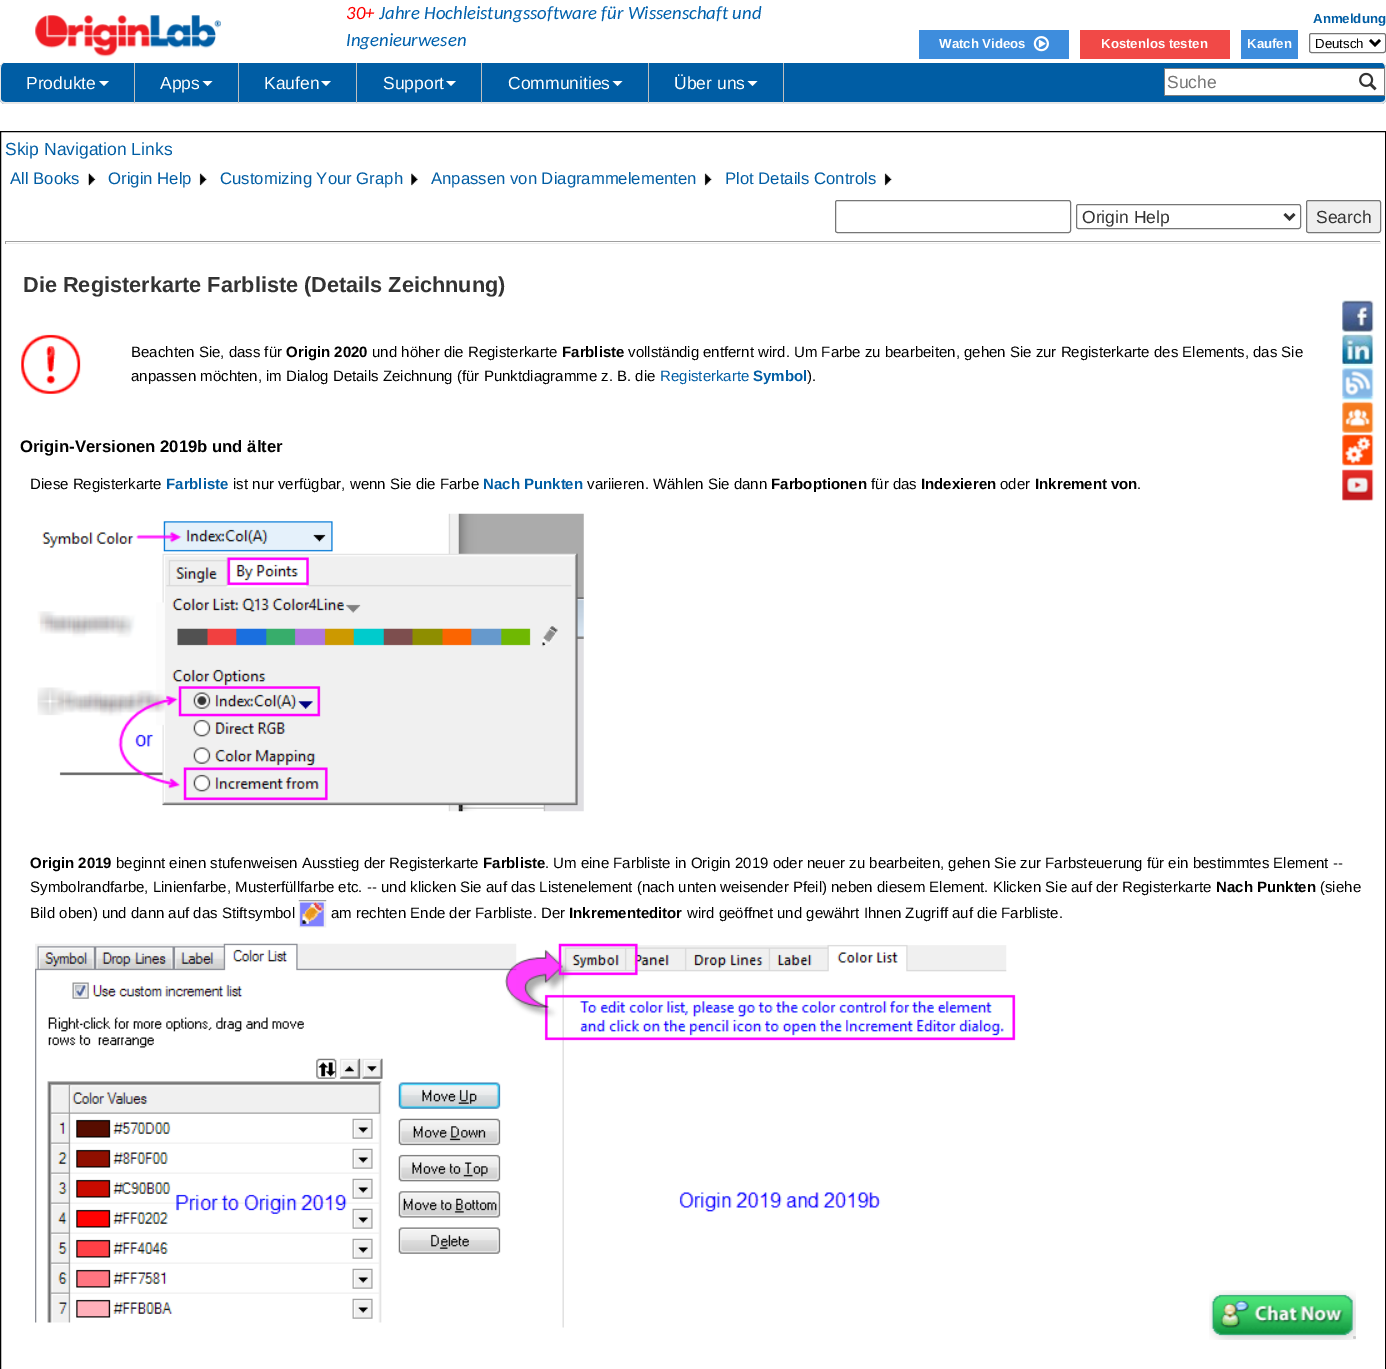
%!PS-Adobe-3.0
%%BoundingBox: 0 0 1386 1369
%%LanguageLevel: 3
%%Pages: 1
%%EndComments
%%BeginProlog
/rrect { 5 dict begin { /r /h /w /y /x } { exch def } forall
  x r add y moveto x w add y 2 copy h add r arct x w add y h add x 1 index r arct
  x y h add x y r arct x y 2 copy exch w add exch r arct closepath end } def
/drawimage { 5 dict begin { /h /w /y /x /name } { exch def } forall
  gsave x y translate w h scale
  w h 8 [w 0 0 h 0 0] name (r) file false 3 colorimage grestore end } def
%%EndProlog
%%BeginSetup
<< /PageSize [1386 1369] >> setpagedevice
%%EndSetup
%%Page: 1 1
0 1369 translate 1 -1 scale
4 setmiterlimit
1 setgray
0 0 1386 1369 rectfill
(images/1.raw) 35 15 186 42 drawimage
0.243 0.553 0.867 setrgbcolor
919 30 150 29 rectfill
(images/2.raw) 1033 36 16 16 drawimage
0.945 0.286 0.278 setrgbcolor
1080 30 150 29 rectfill
0.243 0.553 0.867 setrgbcolor
1241 30 57 29 rectfill
0.463 setgray
1309.5 33.5 76 19 2 rrect stroke
0 setgray
2.5 setlinewidth
newpath 1370 40 moveto 1375 45 lineto 1380 40 lineto stroke
0 0.365 0.643 setrgbcolor
0 63 1386 41 5 rrect fill
0.906 setgray
newpath 5 62 moveto 1381 62 lineto 1384 62 1386 65 1386 68 curveto 1386 99 lineto 1386 102 1384 104 1381 104 curveto 5 104 lineto 2 104 0 102 0 99 curveto 0 68 lineto 0 65 2 62 5 62 curveto closepath 5 62 moveto 1381 62 lineto 1383 62 1385 65 1385 68 curveto 1385 99 lineto 1385 101 1383 102 1381 102 curveto 5 102 lineto 3 102 1 101 1 99 curveto 1 68 lineto 1 65 3 62 5 62 curveto closepath eofill
0.749 setgray
134 63 1 40 rectfill
1 setgray
newpath 99 81 moveto 109 81 lineto 104 86 lineto closepath fill
0.749 setgray
238 63 1 40 rectfill
1 setgray
newpath 202.5 81 moveto 212.5 81 lineto 207.5 86 lineto closepath fill
0.749 setgray
356 63 1 40 rectfill
1 setgray
newpath 321 81 moveto 331 81 lineto 326 86 lineto closepath fill
0.749 setgray
481 63 1 40 rectfill
1 setgray
newpath 446 81 moveto 456 81 lineto 451 86 lineto closepath fill
0.749 setgray
648 63 1 40 rectfill
1 setgray
newpath 612.5 81 moveto 622.5 81 lineto 617.5 86 lineto closepath fill
0.749 setgray
783 63 1 40 rectfill
1 setgray
newpath 747.5 81 moveto 757.5 81 lineto 752.5 86 lineto closepath fill
1165 69 219 26 rectfill
0.502 setgray
1164 68 221 1 rectfill
1164 95 187 1 rectfill
1164 68 1 28 rectfill
1384 68 1 28 rectfill
1351 95 34 1 rectfill
(images/3.raw) 1359 72 18 19 drawimage
0 setgray
1 setlinewidth
0.5 131.5 1385 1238 rectstroke
(images/4.raw) 1342 300 32 33 drawimage
(images/5.raw) 1342 334 32 33 drawimage
(images/6.raw) 1342 367 32 34 drawimage
(images/7.raw) 1342 401 33 33 drawimage
(images/8.raw) 1342 434 32 33 drawimage
(images/9.raw) 1342 469 32 32 drawimage
(images/10.raw) 88 173 8 13 drawimage
(images/11.raw) 199 173 8 13 drawimage
(images/12.raw) 411 173 7 13 drawimage
(images/13.raw) 704 173 8 13 drawimage
(images/13.raw) 884 173 8 13 drawimage
0.463 setgray
835.5 200.5 235 32 2 rrect stroke
1076.5 204.5 224 24 2 rrect stroke
0.2 setgray
2.5 setlinewidth
newpath 1284.5 214 moveto 1289.5 219 lineto 1294.5 214 lineto stroke
0.937 setgray
1306.5 200.5 74 32 2 rrect gsave fill grestore
0.463 setgray
1 setlinewidth
stroke
0.624 setgray
5 241 1376 1 rectfill
0.933 setgray
1380 241 1 3 rectfill
5 243 1376 1 rectfill
0.624 setgray
5 241 1 3 rectfill
(images/14.raw) 21 334 60 60 drawimage
(images/15.raw) 37 513 547 299 drawimage
(images/16.raw) 298 900 29 28 drawimage
(images/17.raw) 35 943 981 385 drawimage
(images/18.raw) 1209 1290 147 50 drawimage
0.8 setgray
newpath 1354.5 1337.5 1.5 0 360 arc closepath fill
/Carlito-Italic [18.75 0 0 -18.75 0 0] selectfont
1 0 0 setrgbcolor
346 19 moveto (30+) show
0 0.38 0.678 setrgbcolor
379 19 moveto (Jahre Hochleistungssoftware für Wissenschaft und) show
346 46 moveto (Ingenieurwesen) show
/LiberationSans-Bold [13.25 0 0 -13.25 0 0] selectfont
0 0.365 0.643 setrgbcolor
1313 23 moveto (Anmeldung) show
1 setgray
939 48 moveto (Watch Videos) show
1101 48 moveto (Kostenlos testen) show
1247 48 moveto (Kaufen) show
/LiberationSans-Regular [13.25 0 0 -13.25 0 0] selectfont
0 setgray
1315 48 moveto (Deutsch) show
/LiberationSans-Regular [17.5 0 0 -17.5 0 0] selectfont
1 setgray
26 89 moveto (Produkte) show
160 89 moveto (Apps) show
264 89 moveto (Kaufen) show
383 89 moveto (Support) show
508 89 moveto (Communities) show
674 89 moveto (Über uns) show
0.459 setgray
1167 88 moveto (Suche) show
0 0.365 0.643 setrgbcolor
5 155 moveto (Skip Navigation Links) show
/LiberationSans-Regular [16.7 0 0 -16.7 0 0] selectfont
10 184 moveto (All Books) show
108 184 moveto (Origin Help) show
220 184 moveto (Customizing Your Graph) show
431 184 moveto (Anpassen von Diagrammelementen) show
725 184 moveto (Plot Details Controls) show
/LiberationSans-Regular [17.5 0 0 -17.5 0 0] selectfont
0.2 setgray
1082 223 moveto (Origin Help) show
1316 223 moveto (Search) show
/LiberationSans-Bold [21.7 0 0 -21.7 0 0] selectfont
23 292 moveto (Die Registerkarte Farbliste \(Details Zeichnung\)) show
/LiberationSans-Regular [15 0 0 -15 0 0] selectfont
0 setgray
131 357 moveto (Beachten Sie, dass für) show
/LiberationSans-Bold [15 0 0 -15 0 0] selectfont
286 357 moveto (Origin 2020) show
/LiberationSans-Regular [15 0 0 -15 0 0] selectfont
372 357 moveto (und höher die Registerkarte) show
/LiberationSans-Bold [15 0 0 -15 0 0] selectfont
562 357 moveto (Farbliste) show
/LiberationSans-Regular [15 0 0 -15 0 0] selectfont
628 357 moveto (vollständig entfernt wird. Um Farbe zu bearbeiten, gehen Sie zur Registerkarte des Elements, das Sie) show
131 381 moveto (anpassen möchten, im Dialog Details Zeichnung \(für Punktdiagramme z. B. die) show
0 0.365 0.643 setrgbcolor
660 381 moveto (Registerkarte) show
/LiberationSans-Bold [15 0 0 -15 0 0] selectfont
753 381 moveto (Symbol) show
/LiberationSans-Regular [15 0 0 -15 0 0] selectfont
0 setgray
807 381 moveto (\).) show
/LiberationSans-Bold [16.7 0 0 -16.7 0 0] selectfont
20 452 moveto (Origin-Versionen 2019b und älter) show
/LiberationSans-Regular [15 0 0 -15 0 0] selectfont
30 489 moveto (Diese Registerkarte) show
/LiberationSans-Bold [15 0 0 -15 0 0] selectfont
0 0.365 0.643 setrgbcolor
166 489 moveto (Farbliste) show
/LiberationSans-Regular [15 0 0 -15 0 0] selectfont
0 setgray
233 489 moveto (ist nur verfügbar, wenn Sie die Farbe) show
/LiberationSans-Bold [15 0 0 -15 0 0] selectfont
0 0.365 0.643 setrgbcolor
483 489 moveto (Nach Punkten) show
/LiberationSans-Regular [15 0 0 -15 0 0] selectfont
0 setgray
587 489 moveto (variieren. Wählen Sie dann) show
/LiberationSans-Bold [15 0 0 -15 0 0] selectfont
771 489 moveto (Farboptionen) show
/LiberationSans-Regular [15 0 0 -15 0 0] selectfont
871 489 moveto (für das) show
/LiberationSans-Bold [15 0 0 -15 0 0] selectfont
921 489 moveto (Indexieren) show
/LiberationSans-Regular [15 0 0 -15 0 0] selectfont
1000 489 moveto (oder) show
/LiberationSans-Bold [15 0 0 -15 0 0] selectfont
1035 489 moveto (Inkrement von) show
/LiberationSans-Regular [15 0 0 -15 0 0] selectfont
1137 489 moveto (.) show
/LiberationSans-Bold [15 0 0 -15 0 0] selectfont
30 868 moveto (Origin 2019) show
/LiberationSans-Regular [15 0 0 -15 0 0] selectfont
116 868 moveto (beginnt einen stufenweisen Ausstieg der Registerkarte) show
/LiberationSans-Bold [15 0 0 -15 0 0] selectfont
483 868 moveto (Farbliste) show
/LiberationSans-Regular [15 0 0 -15 0 0] selectfont
545 868 moveto (. Um eine Farbliste in Origin 2019 oder neuer zu bearbeiten, gehen Sie zur Farbsteuerung für ein bestimmtes Element --) show
30 892 moveto (Symbolrandfarbe, Linienfarbe, Musterfüllfarbe etc. -- und klicken Sie auf das Listenelement \(nach unten weisender Pfeil\) neben diesem Element. Klicken Sie auf der Registerkarte) show
/LiberationSans-Bold [15 0 0 -15 0 0] selectfont
1216 892 moveto (Nach Punkten) show
/LiberationSans-Regular [15 0 0 -15 0 0] selectfont
1320 892 moveto (\(siehe) show
30 918 moveto (Bild oben\) und dann auf das Stiftsymbol) show
331 918 moveto (am rechten Ende der Farbliste. Der) show
/LiberationSans-Bold [15 0 0 -15 0 0] selectfont
569 918 moveto (Inkrementeditor) show
/LiberationSans-Regular [15 0 0 -15 0 0] selectfont
687 918 moveto (wird geöffnet und gewährt Ihnen Zugriff auf die Farbliste.) show
showpage
%%EOF
